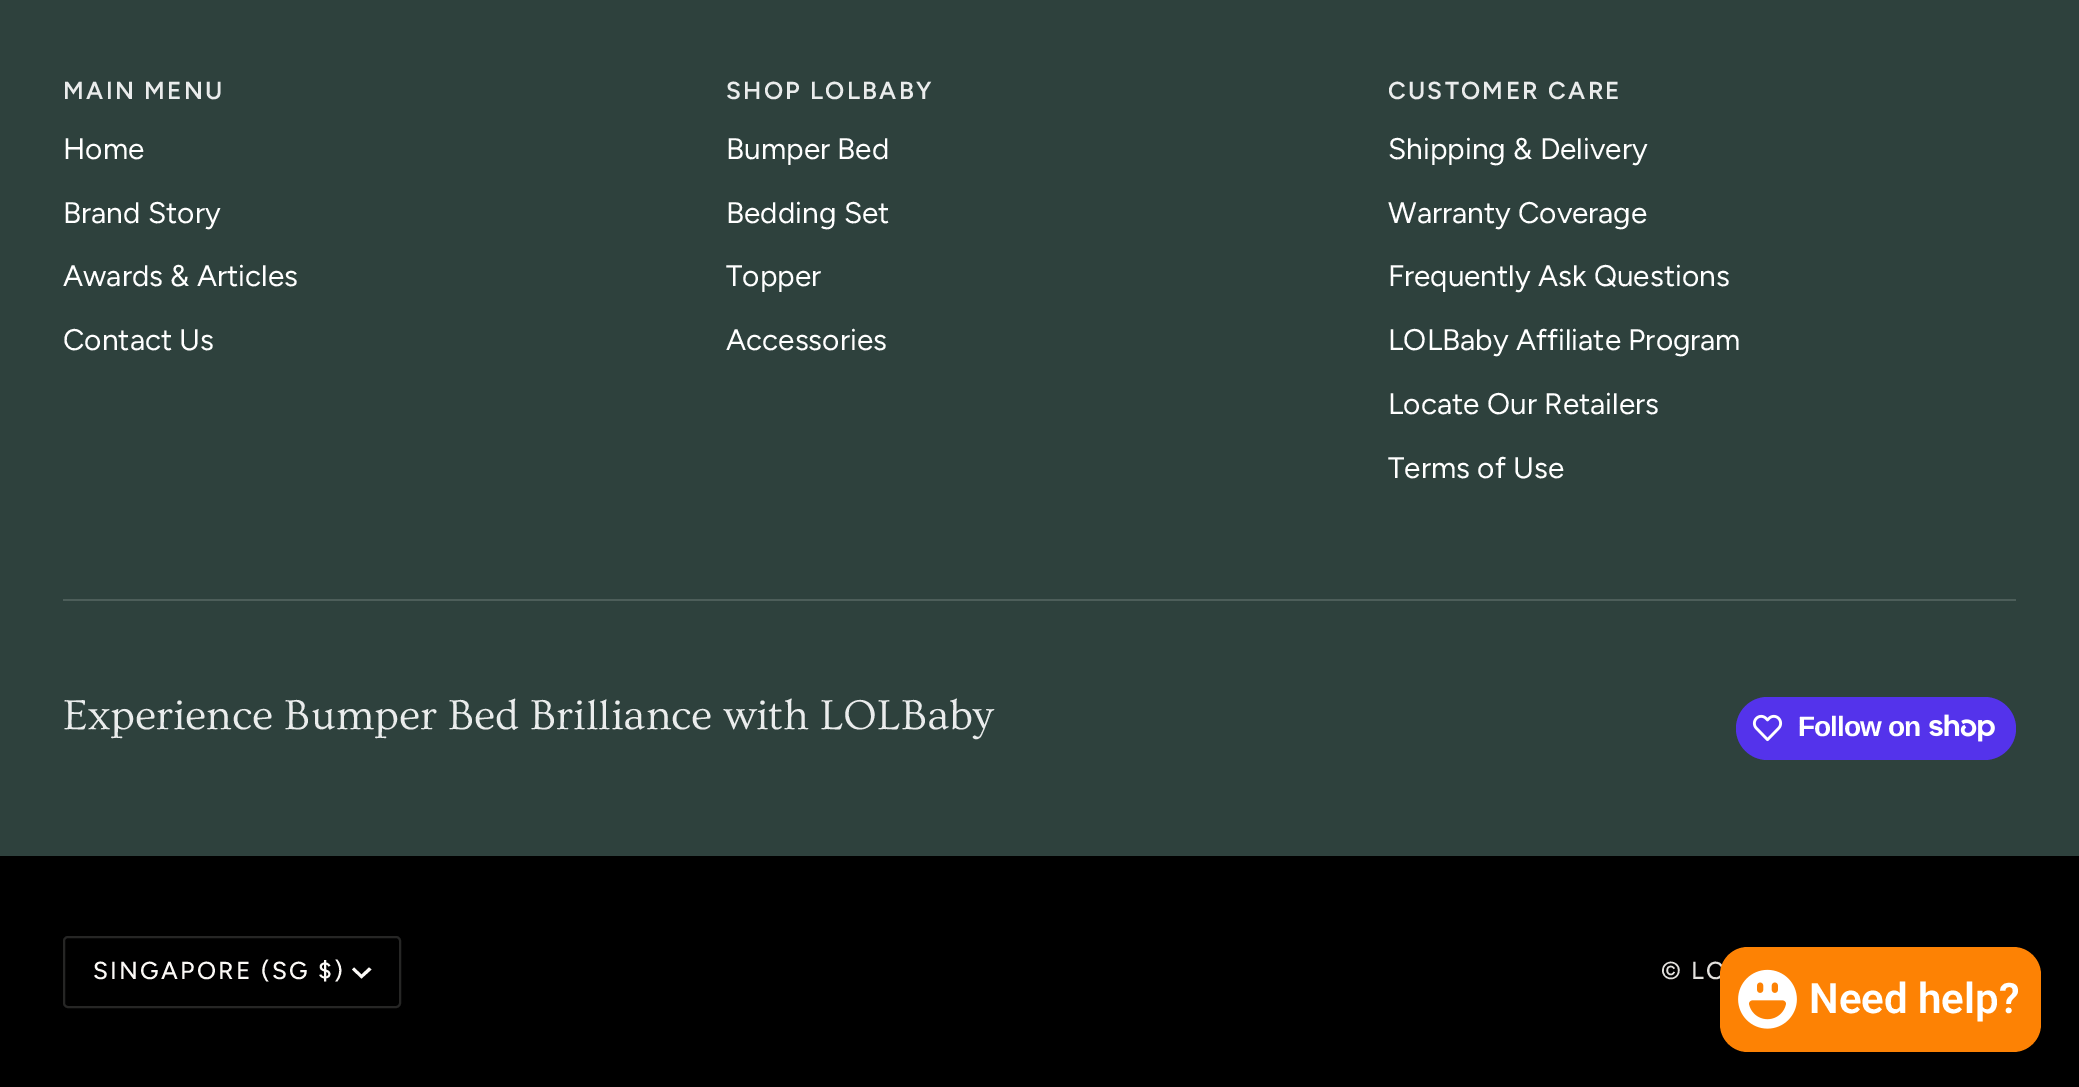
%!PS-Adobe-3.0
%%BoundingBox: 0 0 2079 1087
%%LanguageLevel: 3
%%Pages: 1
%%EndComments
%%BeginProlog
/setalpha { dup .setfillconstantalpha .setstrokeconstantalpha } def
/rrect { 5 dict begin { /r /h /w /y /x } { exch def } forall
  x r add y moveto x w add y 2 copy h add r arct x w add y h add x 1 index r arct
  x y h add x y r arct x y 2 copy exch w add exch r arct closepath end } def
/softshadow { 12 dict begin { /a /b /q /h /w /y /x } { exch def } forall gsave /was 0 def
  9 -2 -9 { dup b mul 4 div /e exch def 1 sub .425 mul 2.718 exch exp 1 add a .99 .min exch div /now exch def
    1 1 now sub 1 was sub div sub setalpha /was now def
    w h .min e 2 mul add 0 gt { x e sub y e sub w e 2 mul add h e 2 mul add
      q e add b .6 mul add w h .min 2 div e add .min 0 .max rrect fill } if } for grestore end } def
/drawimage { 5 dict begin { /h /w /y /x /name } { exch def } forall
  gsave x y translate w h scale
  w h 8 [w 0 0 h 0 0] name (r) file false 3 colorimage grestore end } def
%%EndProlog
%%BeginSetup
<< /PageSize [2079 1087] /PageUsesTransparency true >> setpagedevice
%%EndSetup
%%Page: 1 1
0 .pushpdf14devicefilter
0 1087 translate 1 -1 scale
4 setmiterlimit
0 setgray
0 0 2079 1087 rectfill
0.18 0.255 0.239 setrgbcolor
0 0 2079 856 rectfill
0.302 0.369 0.353 setrgbcolor
63 599 1953 2 rectfill
0.329 0.2 0.922 setrgbcolor
1736 697 280 63 31.5 rrect fill
(images/1.raw) 1752 714 31 28 drawimage
(images/2.raw) 1929 714 66 28 drawimage
0.149 0.149 0.145 setrgbcolor
2 setlinewidth
64 937 336 70 4 rrect stroke
0.988 0.98 0.969 setrgbcolor
newpath 352 969.5 moveto 354 967.5 lineto 361.5 974.5 lineto 369 967.5 lineto 371.5 969.5 lineto 361.5 978.5 lineto closepath eofill
0 setgray
1720 947 321 105 28 4.5 0.15 softshadow
/Figtree-SemiBold [24.5 0 0 -24.5 0 0] selectfont
0.918 0.925 0.925 setrgbcolor
63 99 moveto 2.25 0 (MAIN MENU) ashow
/Figtree-Regular [29.75 0 0 -29.75 0 0] selectfont
1 setgray
63 159 moveto (Home) show
63 223 moveto (Brand Story) show
63 286 moveto (Awards & Articles) show
63 350 moveto (Contact Us) show
/Figtree-SemiBold [24.5 0 0 -24.5 0 0] selectfont
0.918 0.925 0.925 setrgbcolor
726 99 moveto 2.25 0 (SHOP LOLBABY) ashow
/Figtree-Regular [29.75 0 0 -29.75 0 0] selectfont
1 setgray
726 159 moveto (Bumper Bed) show
726 223 moveto (Bedding Set) show
726 286 moveto (Topper) show
726 350 moveto (Accessories) show
/Figtree-SemiBold [24.5 0 0 -24.5 0 0] selectfont
0.918 0.925 0.925 setrgbcolor
1388 99 moveto 2.25 0 (CUSTOMER CARE) ashow
/Figtree-Regular [29.75 0 0 -29.75 0 0] selectfont
1 setgray
1388 159 moveto (Shipping & Delivery) show
1388 223 moveto (Warranty Coverage) show
1388 286 moveto (Frequently Ask Questions) show
1388 350 moveto (LOLBaby Affiliate Program) show
1388 414 moveto (Locate Our Retailers) show
1388 478 moveto (Terms of Use) show
/Ovo-Regular [43.75 0 0 -43.75 0 0] selectfont
0.918 0.925 0.925 setrgbcolor
63 729 moveto (Experience Bumper Bed Brilliance with LOLBaby) show
/LiberationSans-Bold [28 0 0 -28 0 0] selectfont
1 setgray
1798 736 moveto -0.9 0 (Follow on) ashow
/Figtree-Medium [24.5 0 0 -24.5 0 0] selectfont
0.988 0.98 0.969 setrgbcolor
93 979 moveto 2.25 0 (SINGAPORE \(SG $\)) ashow
0.89 0.882 0.871 setrgbcolor
1661 979 moveto 2.25 0 (© LO) ashow
0.992 0.51 0.016 setrgbcolor
1720 947 321 105 28 rrect fill
(images/3.raw) 1738 969 59 60 drawimage
/Roboto-SemiBold [42 0 0 -42 0 0] selectfont
1 setgray
1809 1013 moveto (Need help?) show
.poppdf14devicefilter showpage
%%EOF
